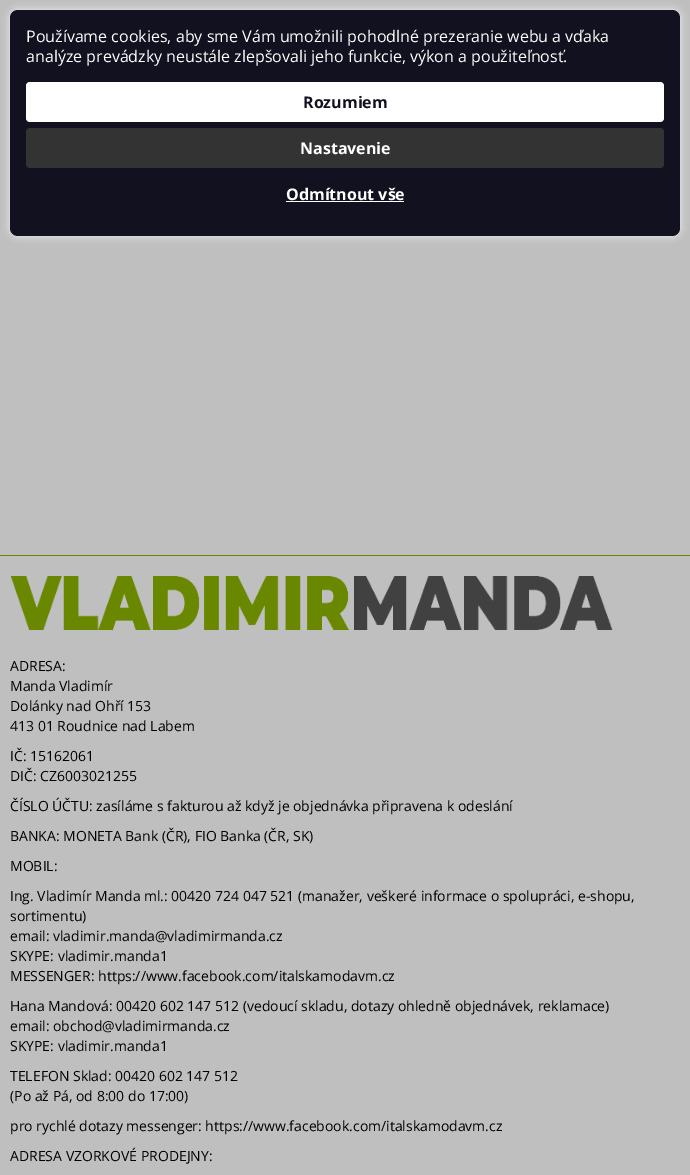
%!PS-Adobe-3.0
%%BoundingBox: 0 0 690 1175
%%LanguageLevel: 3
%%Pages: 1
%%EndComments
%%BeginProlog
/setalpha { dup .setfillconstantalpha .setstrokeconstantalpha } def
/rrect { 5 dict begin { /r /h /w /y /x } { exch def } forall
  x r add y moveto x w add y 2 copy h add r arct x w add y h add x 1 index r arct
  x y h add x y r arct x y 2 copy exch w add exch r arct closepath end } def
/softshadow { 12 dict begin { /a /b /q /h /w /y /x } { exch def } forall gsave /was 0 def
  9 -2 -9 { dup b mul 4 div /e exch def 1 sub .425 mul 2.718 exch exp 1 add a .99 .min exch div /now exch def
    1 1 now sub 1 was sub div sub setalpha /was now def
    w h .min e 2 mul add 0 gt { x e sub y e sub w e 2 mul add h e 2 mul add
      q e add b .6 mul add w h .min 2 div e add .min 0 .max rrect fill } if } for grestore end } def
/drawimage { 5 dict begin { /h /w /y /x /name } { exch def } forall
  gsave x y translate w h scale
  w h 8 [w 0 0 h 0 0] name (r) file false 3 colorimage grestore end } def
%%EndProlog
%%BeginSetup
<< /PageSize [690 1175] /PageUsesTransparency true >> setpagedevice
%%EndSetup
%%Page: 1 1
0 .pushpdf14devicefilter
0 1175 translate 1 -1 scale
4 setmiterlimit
0.749 setgray
0 0 690 1175 rectfill
1 setgray
10 10 670 226 8 4 0.75 softshadow
0.067 0.067 0.122 setrgbcolor
10 10 670 226 8 rrect fill
1 setgray
26 82 638 40 4 rrect fill
0.2 setgray
26 128 638 40 4 rrect fill
1 setgray
286 201 118 1 rectfill
0.412 0.533 0 setrgbcolor
0 555 690 1 rectfill
(images/1.raw) 10 576 603 54 drawimage
/OpenSans-Regular [16 0 0 -16 0 0] selectfont
1 setgray
26 42 moveto (Používame cookies, aby sme Vám umožnili pohodlné prezeranie webu a vďaka) show
26 62 moveto (analýze prevádzky neustále zlepšovali jeho funkcie, výkon a použiteľnosť.) show
/OpenSans-Bold [16 0 0 -16 0 0] selectfont
0.067 0.067 0.122 setrgbcolor
303 108 moveto (Rozumiem) show
1 setgray
300 154 moveto (Nastavenie) show
286 200 moveto (Odmítnout vše) show
/OpenSans-Regular [14 0 0 -14 0 0] selectfont
0 setgray
10 671 moveto (ADRESA:) show
10 691 moveto (Manda Vladimír) show
10 711 moveto (Dolánky nad Ohří 153) show
10 731 moveto (413 01 Roudnice nad Labem) show
10 761 moveto (IČ: 15162061) show
10 781 moveto (DIČ: CZ6003021255) show
10 811 moveto (ČÍSLO ÚČTU: zasíláme s fakturou až když je objednávka připravena k odeslání) show
10 841 moveto (BANKA: MONETA Bank \(ČR\), FIO Banka \(ČR, SK\)) show
10 871 moveto (MOBIL:) show
10 901 moveto (Ing. Vladimír Manda ml.: 00420 724 047 521 \(manažer, veškeré informace o spolupráci, e-shopu,) show
10 921 moveto (sortimentu\)) show
10 941 moveto (email: vladimir.manda@vladimirmanda.cz) show
10 961 moveto (SKYPE: vladimir.manda1) show
10 981 moveto (MESSENGER: https://www.facebook.com/italskamodavm.cz) show
10 1011 moveto (Hana Mandová: 00420 602 147 512 \(vedoucí skladu, dotazy ohledně objednávek, reklamace\)) show
10 1031 moveto (email: obchod@vladimirmanda.cz) show
10 1051 moveto (SKYPE: vladimir.manda1) show
10 1081 moveto (TELEFON Sklad: 00420 602 147 512) show
10 1101 moveto (\(Po až Pá, od 8:00 do 17:00\)) show
10 1131 moveto (pro rychlé dotazy messenger: https://www.facebook.com/italskamodavm.cz) show
10 1161 moveto (ADRESA VZORKOVÉ PRODEJNY:) show
.poppdf14devicefilter showpage
%%EOF
